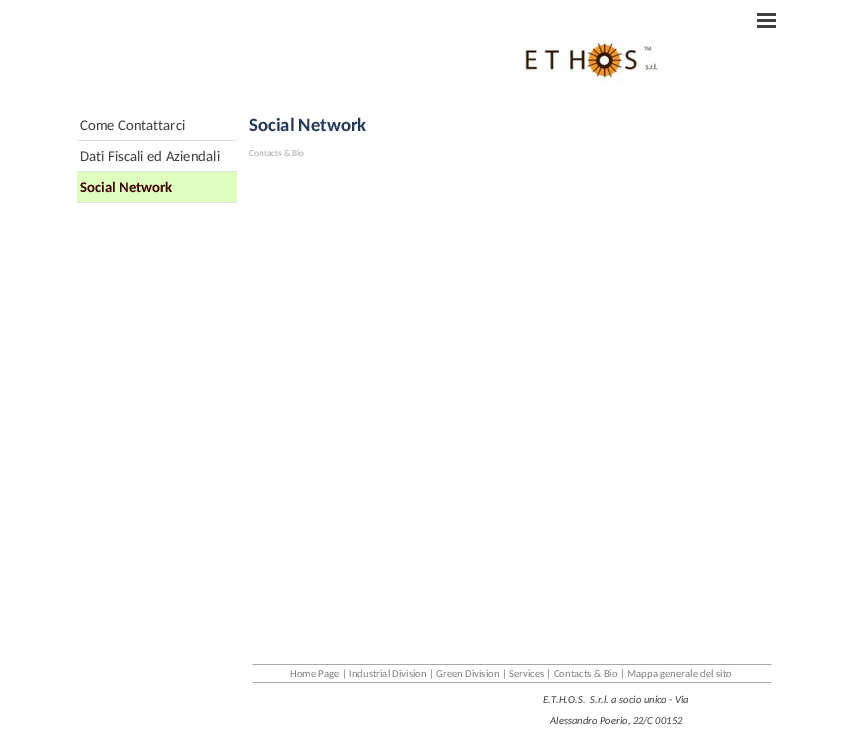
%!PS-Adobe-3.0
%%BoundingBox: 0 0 853 739
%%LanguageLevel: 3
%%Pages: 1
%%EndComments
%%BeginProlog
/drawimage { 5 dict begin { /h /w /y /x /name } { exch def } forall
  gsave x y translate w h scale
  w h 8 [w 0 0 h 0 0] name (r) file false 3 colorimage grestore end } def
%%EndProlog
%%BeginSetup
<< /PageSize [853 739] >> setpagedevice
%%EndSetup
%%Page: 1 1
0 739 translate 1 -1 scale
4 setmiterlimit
1 setgray
0 0 853 739 rectfill
0.251 setgray
757 13 19 3 rectfill
757 19 19 3 rectfill
757 25 19 3 rectfill
(images/1.raw) 522 40 136 42 drawimage
0.878 setgray
77 140 160 1 rectfill
77 171 160 1 rectfill
0.875 1 0.749 setrgbcolor
77 172 160 30 rectfill
0.878 setgray
77 202 160 1 rectfill
0.663 setgray
newpath 252 664 moveto 772 664 lineto 771 665 lineto 253 665 lineto closepath fill
newpath 772 683 moveto 252 683 lineto 253 682 lineto 771 682 lineto closepath fill
/Carlito-Regular [14.75 0 0 -14.75 0 0] selectfont
0.251 setgray
80 130 moveto (Come Contattarci) show
80 161 moveto (Dati Fiscali ed Aziendali) show
/Carlito-Bold [14.75 0 0 -14.75 0 0] selectfont
0.251 0 0 setrgbcolor
80 192 moveto (Social Network) show
/Carlito-Bold [18.75 0 0 -18.75 0 0] selectfont
0.145 0.227 0.345 setrgbcolor
249 131 moveto (Social Network) show
/Carlito-Regular [9.25 0 0 -9.25 0 0] selectfont
0.663 setgray
249 156 moveto (Contacts & Bio) show
/Carlito-Regular [10.65 0 0 -10.65 0 0] selectfont
0.502 setgray
290 677 moveto (Home Page | Industrial Division | Green Division | Services | Contacts & Bio | Mappa generale del sito) show
/Carlito-Italic [10.65 0 0 -10.65 0 0] selectfont
0.251 setgray
543 703 moveto (E.T.H.O.S.  S.r.l. a socio unico - Via) show
550 724 moveto (Alessandro Poerio, 22/C 00152) show
showpage
%%EOF
